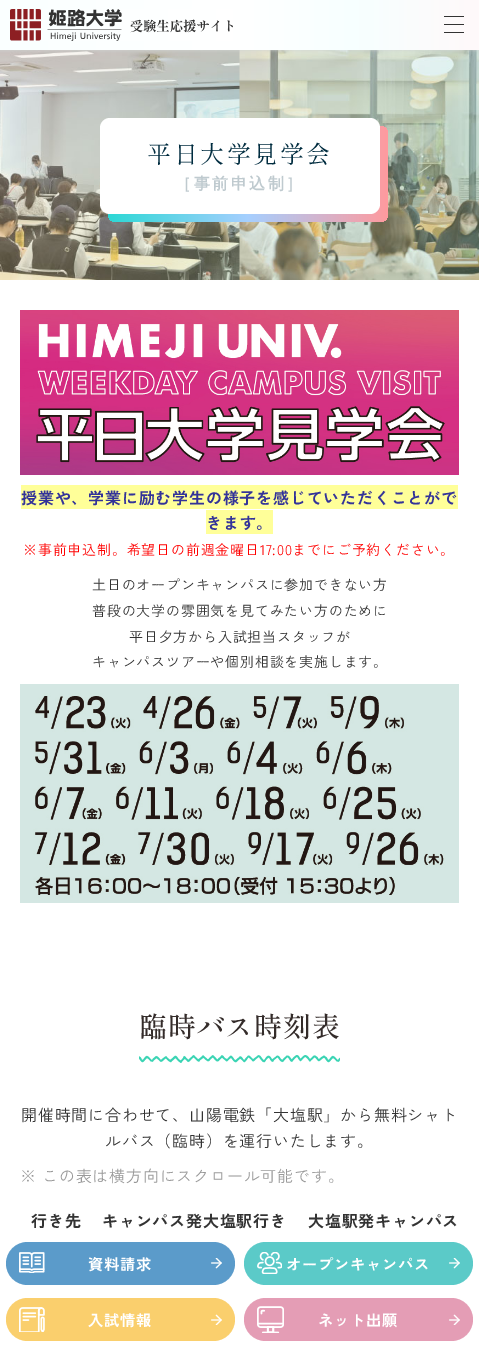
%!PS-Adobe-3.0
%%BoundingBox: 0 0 479 1354
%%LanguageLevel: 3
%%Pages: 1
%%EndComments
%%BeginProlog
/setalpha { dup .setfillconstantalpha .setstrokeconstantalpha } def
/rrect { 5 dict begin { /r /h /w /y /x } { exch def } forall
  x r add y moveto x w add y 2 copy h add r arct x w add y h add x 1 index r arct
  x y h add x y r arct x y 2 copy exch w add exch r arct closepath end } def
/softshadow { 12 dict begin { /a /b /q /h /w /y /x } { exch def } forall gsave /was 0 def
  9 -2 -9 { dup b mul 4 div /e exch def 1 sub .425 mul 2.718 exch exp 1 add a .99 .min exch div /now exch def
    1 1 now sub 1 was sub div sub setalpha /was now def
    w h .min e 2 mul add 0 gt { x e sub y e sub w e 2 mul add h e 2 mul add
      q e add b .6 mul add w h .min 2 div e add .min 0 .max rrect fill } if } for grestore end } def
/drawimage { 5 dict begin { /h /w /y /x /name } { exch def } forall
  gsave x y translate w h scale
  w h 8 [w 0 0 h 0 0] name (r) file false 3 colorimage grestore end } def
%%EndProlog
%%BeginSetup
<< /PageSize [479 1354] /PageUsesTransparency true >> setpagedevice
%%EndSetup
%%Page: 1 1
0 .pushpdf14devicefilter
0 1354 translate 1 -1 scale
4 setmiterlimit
1 setgray
0 0 479 1354 rectfill
(images/2.raw) 0 50 479 230 drawimage
0.831 0.847 0.847 setrgbcolor
0 0 479 50 0 1.5 0.8 softshadow
gsave newpath 0 0 moveto 479 0 lineto 479 50 lineto 0 50 lineto closepath clip newpath
<< /ShadingType 2 /ColorSpace /DeviceRGB /Coords [0 25 479 25] /Extend [true true] /Function << /FunctionType 3 /Domain [0 1] /Functions [<< /FunctionType 2 /Domain [0 1] /C0 [0.98 1 1] /C1 [1 1 1] /N 1 >> << /FunctionType 2 /Domain [0 1] /C0 [1 1 1] /C1 [0.969 1 1] /N 1 >> << /FunctionType 2 /Domain [0 1] /C0 [0.969 1 1] /C1 [1 0.976 0.98] /N 1 >>] /Bounds [0.5 0.75] /Encode [0 1 0 1 0 1] >> >> shfill grestore
(images/1.raw) 10 9 223 32 drawimage
0.2 setgray
444 16 20 1 rectfill
444 24 20 1 rectfill
444 32 20 1 rectfill
gsave 108 126 280 96 8 rrect clip newpath
<< /ShadingType 2 /ColorSpace /DeviceRGB /Coords [108 174 388 174] /Extend [true true] /Function << /FunctionType 3 /Domain [0 1] /Functions [<< /FunctionType 2 /Domain [0 1] /C0 [0.173 0.847 0.835] /C1 [0.651 0.812 1] /N 1 >> << /FunctionType 2 /Domain [0 1] /C0 [0.651 0.812 1] /C1 [1 0.604 0.62] /N 1 >>] /Bounds [0.5] /Encode [0 1 0 1] >> >> shfill grestore
1 setgray
100 118 280 96 10 rrect fill
(images/3.raw) 20 310 439 165 drawimage
1 1 0.6 setrgbcolor
21 485 437 24 rectfill
206 510 67 24 rectfill
(images/4.raw) 20 684 439 219 drawimage
(images/5.raw) 139 1055 201 8 drawimage
0.357 0.608 0.792 setrgbcolor
6 1242 229 43 21.5 rrect fill
(images/6.raw) 19 1252 26 21 drawimage
(images/7.raw) 211 1258 11 11 drawimage
0.357 0.792 0.784 setrgbcolor
244 1242 229 43 21.5 rrect fill
(images/8.raw) 257 1252 25 22 drawimage
(images/9.raw) 449 1258 11 11 drawimage
0.98 0.812 0.427 setrgbcolor
6 1298 229 43 21.5 rrect fill
(images/10.raw) 19 1307 26 25 drawimage
(images/11.raw) 211 1314 11 11 drawimage
0.894 0.616 0.71 setrgbcolor
244 1298 229 43 21.5 rrect fill
(images/12.raw) 257 1306 27 27 drawimage
(images/13.raw) 449 1314 11 11 drawimage
/ShipporiMincho-Regular [24 0 0 -24 0 0] selectfont
0 0.173 0.247 setrgbcolor
147 163 moveto 2.5 0 (平日大学見学会) ashow
/WenQuanYiZenHei-Bold [16 0 0 -16 0 0] selectfont
0.749 0.792 0.812 setrgbcolor
175 189 moveto 2.5 0 (［事前申込制］) ashow
/ZenKakuGothicNew-Bold [16 0 0 -16 0 0] selectfont
0.2 0.2 0.6 setrgbcolor
21 504 moveto 0.8 0 (授業や、学業に励む学生の様子を感じていただくことがで) ashow
206 529 moveto 0.8 0 (きます。) ashow
/ZenKakuGothicNew-Regular [14 0 0 -14 0 0] selectfont
1 0 0 setrgbcolor
23 555 moveto 0.8 0 (※事前申込制。希望日の前週金曜日17:00までにご予約ください。) ashow
0.2 setgray
92 590 moveto 0.8 0 (土日のオープンキャンパスに参加できない方) ashow
92 616 moveto 0.8 0 (普段の大学の雰囲気を見てみたい方のために) ashow
129 642 moveto 0.8 0 (平日夕方から入試担当スタッフが) ashow
92 667 moveto 0.8 0 (キャンパスツアーや個別相談を実施します。) ashow
/ShipporiMincho-Medium [28 0 0 -28 0 0] selectfont
0.204 0.173 0.165 setrgbcolor
139 1037 moveto 0.8 0 (臨時バス時刻表) ashow
/ZenKakuGothicNew-Regular [16 0 0 -16 0 0] selectfont
0.2 setgray
21 1121 moveto 0.8 0 (開催時間に合わせて、山陽電鉄「大塩駅」から無料シャト) ashow
105 1147 moveto 0.8 0 (ルバス（臨時）を運行いたします。) ashow
0.6 setgray
20 1182 moveto 0.8 0 (※ この表は横方向にスクロール可能です。) ashow
/ZenKakuGothicNew-Bold [16 0 0 -16 0 0] selectfont
0.2 setgray
31 1227 moveto 0.8 0 (行き先) ashow
102 1227 moveto 0.8 0 (キャンパス発大塩駅行き) ashow
308 1227 moveto 0.8 0 (大塩駅発キャンパス) ashow
/ZenKakuGothicNew-Bold [15.25 0 0 -15.25 0 0] selectfont
1 setgray
88 1270 moveto 0.8 0 (資料請求) ashow
286 1270 moveto 0.8 0 (オープンキャンパス) ashow
88 1326 moveto 0.8 0 (入試情報) ashow
318 1326 moveto 0.8 0 (ネット出願) ashow
.poppdf14devicefilter showpage
%%EOF
